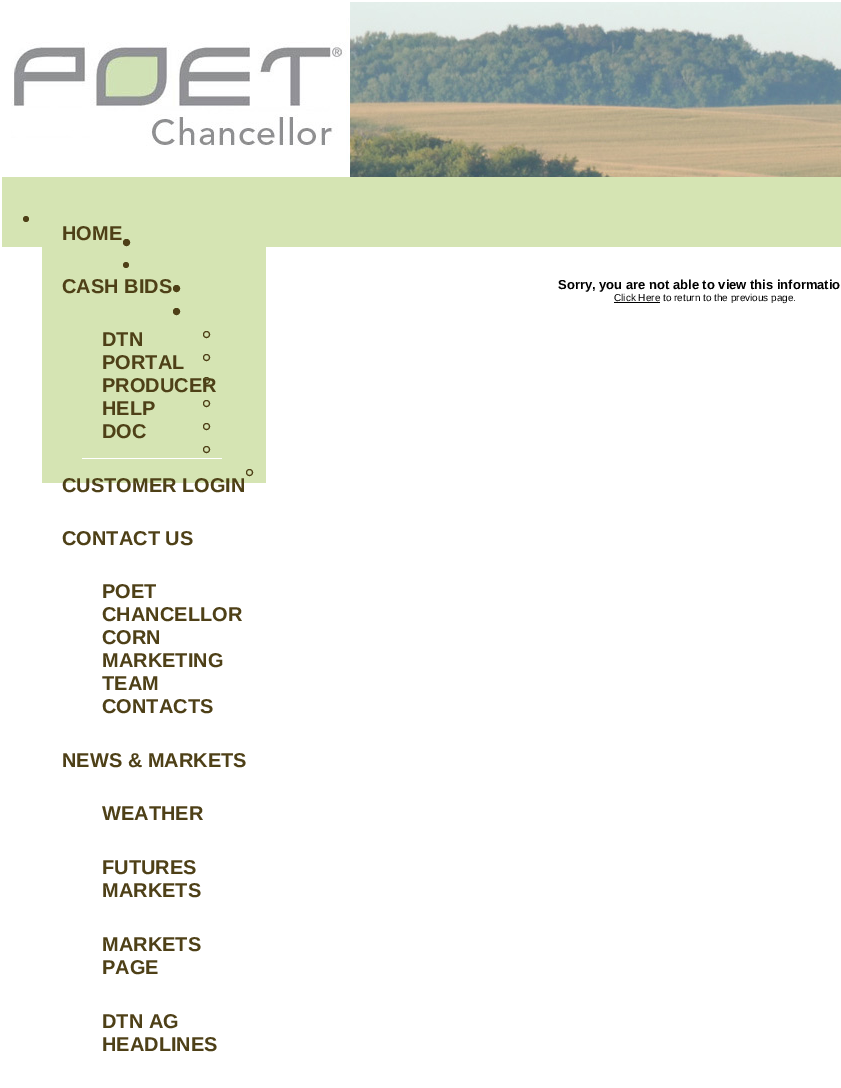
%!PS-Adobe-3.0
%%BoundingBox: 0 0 841 1088
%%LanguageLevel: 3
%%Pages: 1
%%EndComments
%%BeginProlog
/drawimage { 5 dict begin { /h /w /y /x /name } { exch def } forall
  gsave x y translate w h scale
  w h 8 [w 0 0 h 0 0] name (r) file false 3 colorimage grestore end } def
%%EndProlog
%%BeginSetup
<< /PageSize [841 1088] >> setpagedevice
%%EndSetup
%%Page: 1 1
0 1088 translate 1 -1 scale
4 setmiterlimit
1 setgray
0 0 841 1088 rectfill
(images/1.raw) 11 18 338 144 drawimage
(images/2.raw) 350 2 491 175 drawimage
0.835 0.894 0.702 setrgbcolor
2 177 839 70 rectfill
0.306 0.251 0.09 setrgbcolor
newpath 26 219 3 0 360 arc closepath fill
0.835 0.894 0.702 setrgbcolor
42 247 224 236 rectfill
0.306 0.251 0.09 setrgbcolor
newpath 126.5 242.5 3 0 360 arc closepath gsave fill grestore
stroke
1 setgray
82 458 140 1 rectfill
0.306 0.251 0.09 setrgbcolor
newpath 126 265 3 0 360 arc closepath fill
newpath 176.5 288.5 3 0 360 arc closepath gsave fill grestore
stroke
newpath 206.5 403.5 3 0 360 arc closepath stroke
newpath 206.5 426.5 3 0 360 arc closepath stroke
newpath 206.5 449.5 3 0 360 arc closepath stroke
newpath 249.5 472.5 3 0 360 arc closepath stroke
newpath 176.5 311.5 3 0 360 arc closepath gsave fill grestore
stroke
newpath 206.5 334.5 3 0 360 arc closepath stroke
newpath 206.5 357.5 3 0 360 arc closepath stroke
newpath 206.5 380.5 3 0 360 arc closepath stroke
0 setgray
614 302 46 1 rectfill
/LiberationSans-Bold [20 0 0 -20 0 0] selectfont
0.306 0.251 0.09 setrgbcolor
62 240 moveto (HOME) show
62 293 moveto (CASH BIDS) show
102 346 moveto (DTN) show
102 369 moveto (PORTAL) show
102 392 moveto (PRODUCER) show
102 415 moveto (HELP) show
102 438 moveto (DOC) show
62 492 moveto (CUSTOMER LOGIN) show
62 545 moveto (CONTACT US) show
102 598 moveto (POET) show
102 621 moveto (CHANCELLOR) show
102 644 moveto (CORN) show
102 667 moveto (MARKETING) show
102 690 moveto (TEAM) show
102 713 moveto (CONTACTS) show
62 767 moveto (NEWS & MARKETS) show
102 820 moveto (WEATHER) show
102 874 moveto (FUTURES) show
102 897 moveto (MARKETS) show
102 951 moveto (MARKETS) show
102 974 moveto (PAGE) show
102 1028 moveto (DTN AG) show
102 1051 moveto (HEADLINES) show
/LiberationSans-Bold [13 0 0 -13 0 0] selectfont
0 setgray
558 289 moveto (Sorry, you are not able to view this informatio) show
/LiberationSans-Regular [10 0 0 -10 0 0] selectfont
614 301 moveto (Click Here to return to the previous page.) show
showpage
%%EOF
